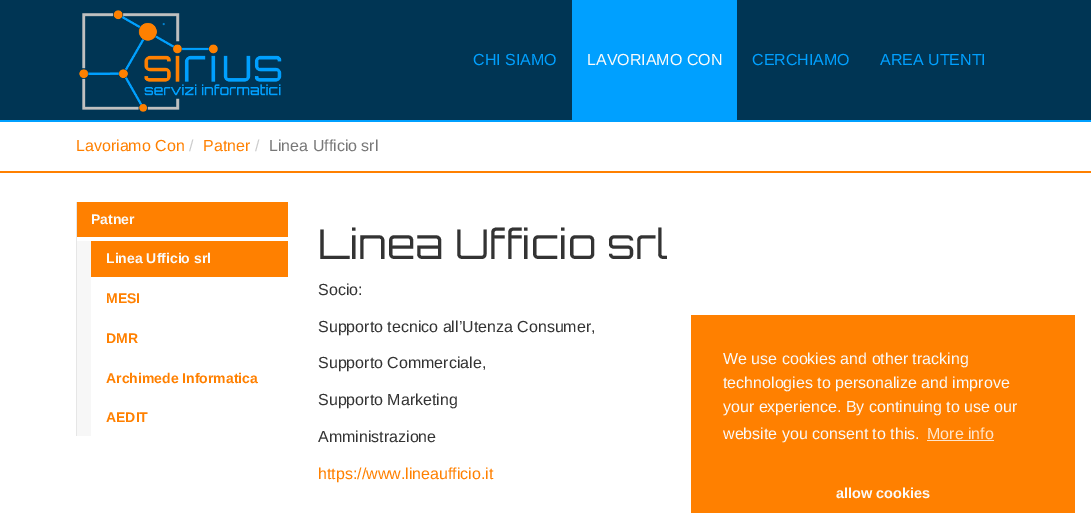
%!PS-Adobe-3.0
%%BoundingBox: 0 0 1091 529
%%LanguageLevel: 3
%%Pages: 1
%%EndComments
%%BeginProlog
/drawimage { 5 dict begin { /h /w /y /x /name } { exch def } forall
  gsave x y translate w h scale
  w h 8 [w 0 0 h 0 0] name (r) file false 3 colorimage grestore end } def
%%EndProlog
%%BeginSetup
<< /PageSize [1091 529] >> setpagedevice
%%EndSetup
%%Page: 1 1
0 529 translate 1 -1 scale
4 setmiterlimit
1 setgray
0 0 1091 529 rectfill
0 0.208 0.329 setrgbcolor
0 0 1091 120 rectfill
0 0.627 1 setrgbcolor
0 120 1091 2 rectfill
(images/1.raw) 79 10 203 102 drawimage
572 0 165 120 rectfill
1 0.502 0 setrgbcolor
0 171 1091 2 rectfill
77 202 211 35 rectfill
0.969 setgray
77 241 14 195 rectfill
0.902 setgray
76 202 1 234 rectfill
1 0.502 0 setrgbcolor
91 241 197 36 rectfill
691 315 384 198 rectfill
1 0.902 0.8 setrgbcolor
927 440 67 1 rectfill
/LiberationSans-Regular [16 0 0 -16 0 0] selectfont
0 0.627 1 setrgbcolor
473 65 moveto (CHI SIAMO) show
0.98 setgray
587 65 moveto (LAVORIAMO CON) show
0 0.627 1 setrgbcolor
752 65 moveto (CERCHIAMO) show
880 65 moveto (AREA UTENTI) show
1 0.502 0 setrgbcolor
76 151 moveto (Lavoriamo Con) show
0.8 setgray
189 151 moveto (/) show
1 0.502 0 setrgbcolor
203 151 moveto (Patner) show
0.8 setgray
255 151 moveto (/) show
0.467 setgray
269 151 moveto (Linea Ufficio srl) show
/LiberationSans-Bold [14 0 0 -14 0 0] selectfont
0.98 setgray
91 224 moveto (Patner) show
106 263 moveto (Linea Ufficio srl) show
1 0.502 0 setrgbcolor
106 303 moveto (MESI) show
106 343 moveto (DMR) show
106 383 moveto (Archimede Informatica) show
106 422 moveto (AEDIT) show
/Orbitron-Regular [41 0 0 -41 0 0] selectfont
0.2 setgray
318 259 moveto (Linea Ufficio srl) show
/LiberationSans-Regular [16 0 0 -16 0 0] selectfont
318 295 moveto (Socio:) show
318 332 moveto (Supporto tecnico all’Utenza Consumer,) show
318 368 moveto (Supporto Commerciale,) show
318 405 moveto (Supporto Marketing) show
318 442 moveto (Amministrazione) show
1 0.502 0 setrgbcolor
318 479 moveto (https://www.lineaufficio.it) show
0.98 setgray
723 364 moveto (We use cookies and other tracking) show
723 388 moveto (technologies to personalize and improve) show
723 412 moveto (your experience. By continuing to use our) show
723 439 moveto (website you consent to this.) show
1 0.902 0.8 setrgbcolor
927 439 moveto (More info) show
/LiberationSans-Bold [14.5 0 0 -14.5 0 0] selectfont
0.98 setgray
836 498 moveto (allow cookies) show
showpage
%%EOF
